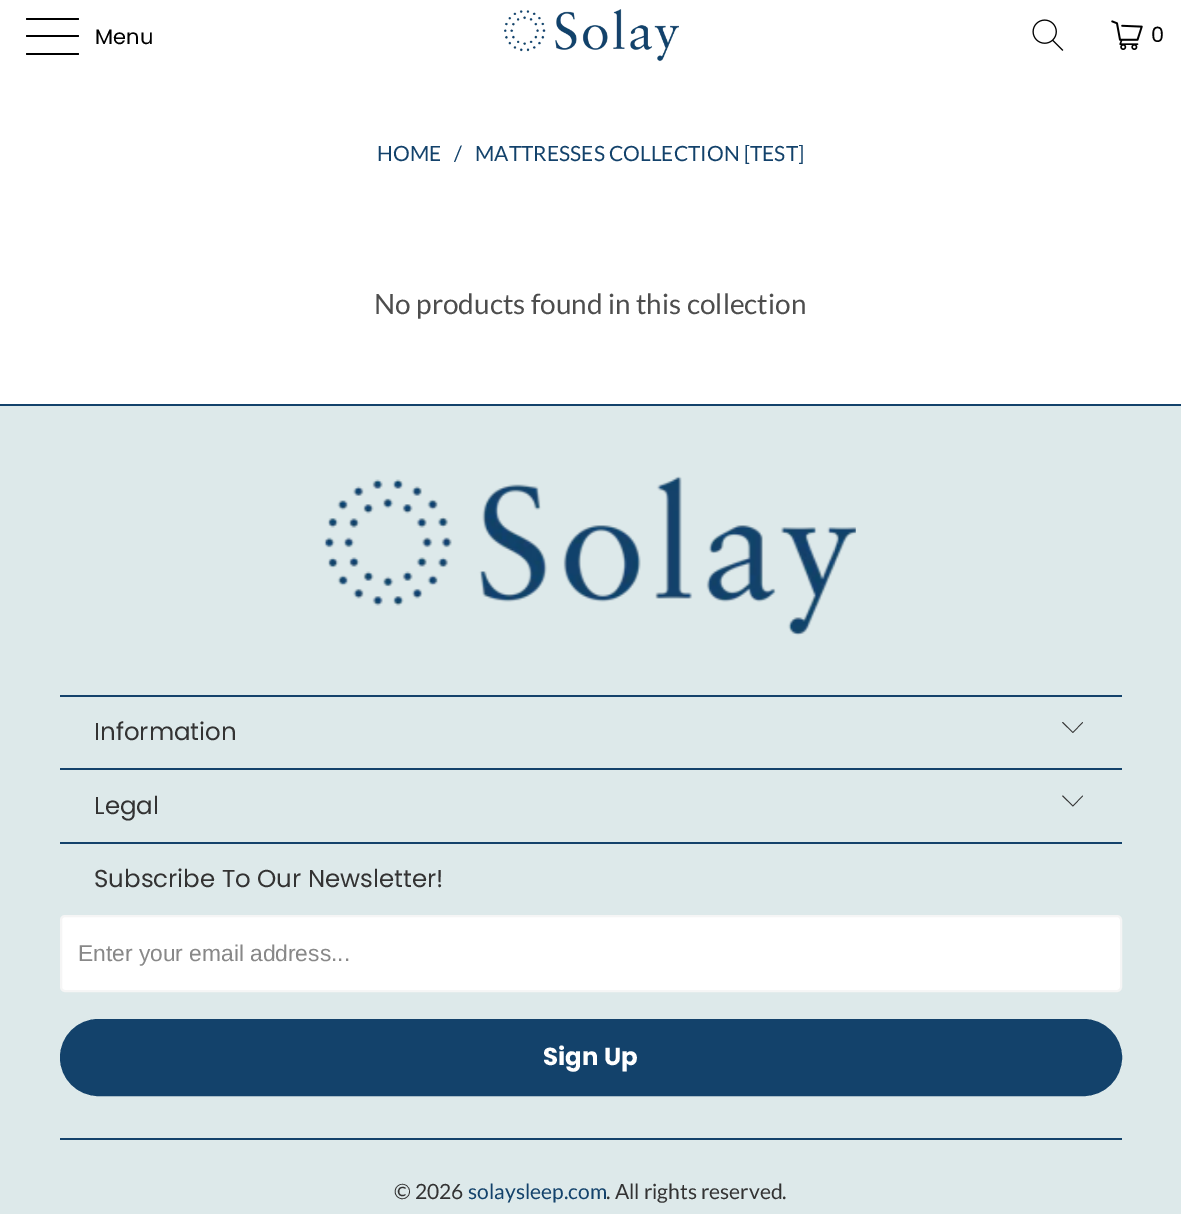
%!PS-Adobe-3.0
%%BoundingBox: 0 0 1181 1214
%%LanguageLevel: 3
%%Pages: 1
%%EndComments
%%BeginProlog
/rrect { 5 dict begin { /r /h /w /y /x } { exch def } forall
  x r add y moveto x w add y 2 copy h add r arct x w add y h add x 1 index r arct
  x y h add x y r arct x y 2 copy exch w add exch r arct closepath end } def
/drawimage { 5 dict begin { /h /w /y /x /name } { exch def } forall
  gsave x y translate w h scale
  w h 8 [w 0 0 h 0 0] name (r) file false 3 colorimage grestore end } def
%%EndProlog
%%BeginSetup
<< /PageSize [1181 1214] >> setpagedevice
%%EndSetup
%%Page: 1 1
0 1214 translate 1 -1 scale
4 setmiterlimit
1 setgray
0 0 1181 1214 rectfill
0 setgray
26 18 53 2 1 rrect fill
26 35 53 2 1 rrect fill
26 53 53 2 1 rrect fill
(images/1.raw) 504 9 175 53 drawimage
(images/2.raw) 1032 19 32 32 drawimage
(images/3.raw) 1111 20 32 30 drawimage
0.867 0.914 0.918 setrgbcolor
0 406 1181 808 rectfill
0.075 0.259 0.42 setrgbcolor
0 404 1181 2 rectfill
(images/4.raw) 324 476 532 160 drawimage
60 695 1062 2 rectfill
0.2 setgray
newpath 1073 733 moveto 1062 722.5 lineto 1063 722 lineto 1073 732 lineto 1082.5 722 lineto 1083 722.5 lineto closepath fill
0.075 0.259 0.42 setrgbcolor
60 768 1062 2 rectfill
0.2 setgray
newpath 1073 806.5 moveto 1062 796 lineto 1063 795.5 lineto 1073 805.5 lineto 1082.5 795.5 lineto 1083 796 lineto closepath fill
0.075 0.259 0.42 setrgbcolor
60 842 1062 2 rectfill
1 setgray
61 916 1060 75 4 rrect gsave fill grestore
0.961 setgray
2 setlinewidth
stroke
0.075 0.259 0.42 setrgbcolor
61 1020 1060 75 37.5 rrect gsave fill grestore
stroke
60 1138 1062 2 rectfill
/Poppins-Regular [21 0 0 -21 0 0] selectfont
0 setgray
95 44 moveto (Menu) show
1151 42 moveto (0) show
/Lato-Regular [21 0 0 -21 0 0] selectfont
0.075 0.259 0.42 setrgbcolor
377 161 moveto (HOME) show
454 161 moveto (/) show
475 161 moveto (MATTRESSES COLLECTION [TEST]) show
/Lato-Regular [28 0 0 -28 0 0] selectfont
0.302 setgray
374 314 moveto (No products found in this collection) show
/Poppins-Regular [24.5 0 0 -24.5 0 0] selectfont
0.2 setgray
94 740 moveto (Information) show
94 814 moveto (Legal) show
94 887 moveto (Subscribe To Our Newsletter!) show
/LiberationSans-Regular [22.75 0 0 -22.75 0 0] selectfont
0.533 setgray
78 961 moveto (Enter your email address...) show
/Poppins-Bold [24.5 0 0 -24.5 0 0] selectfont
1 setgray
543 1065 moveto (Sign Up) show
/Lato-Regular [21 0 0 -21 0 0] selectfont
0.2 setgray
394 1199 moveto (© 2026) show
0.075 0.259 0.42 setrgbcolor
468 1199 moveto (solaysleep.com) show
0.2 setgray
606 1199 moveto (. All rights reserved.) show
showpage
%%EOF
